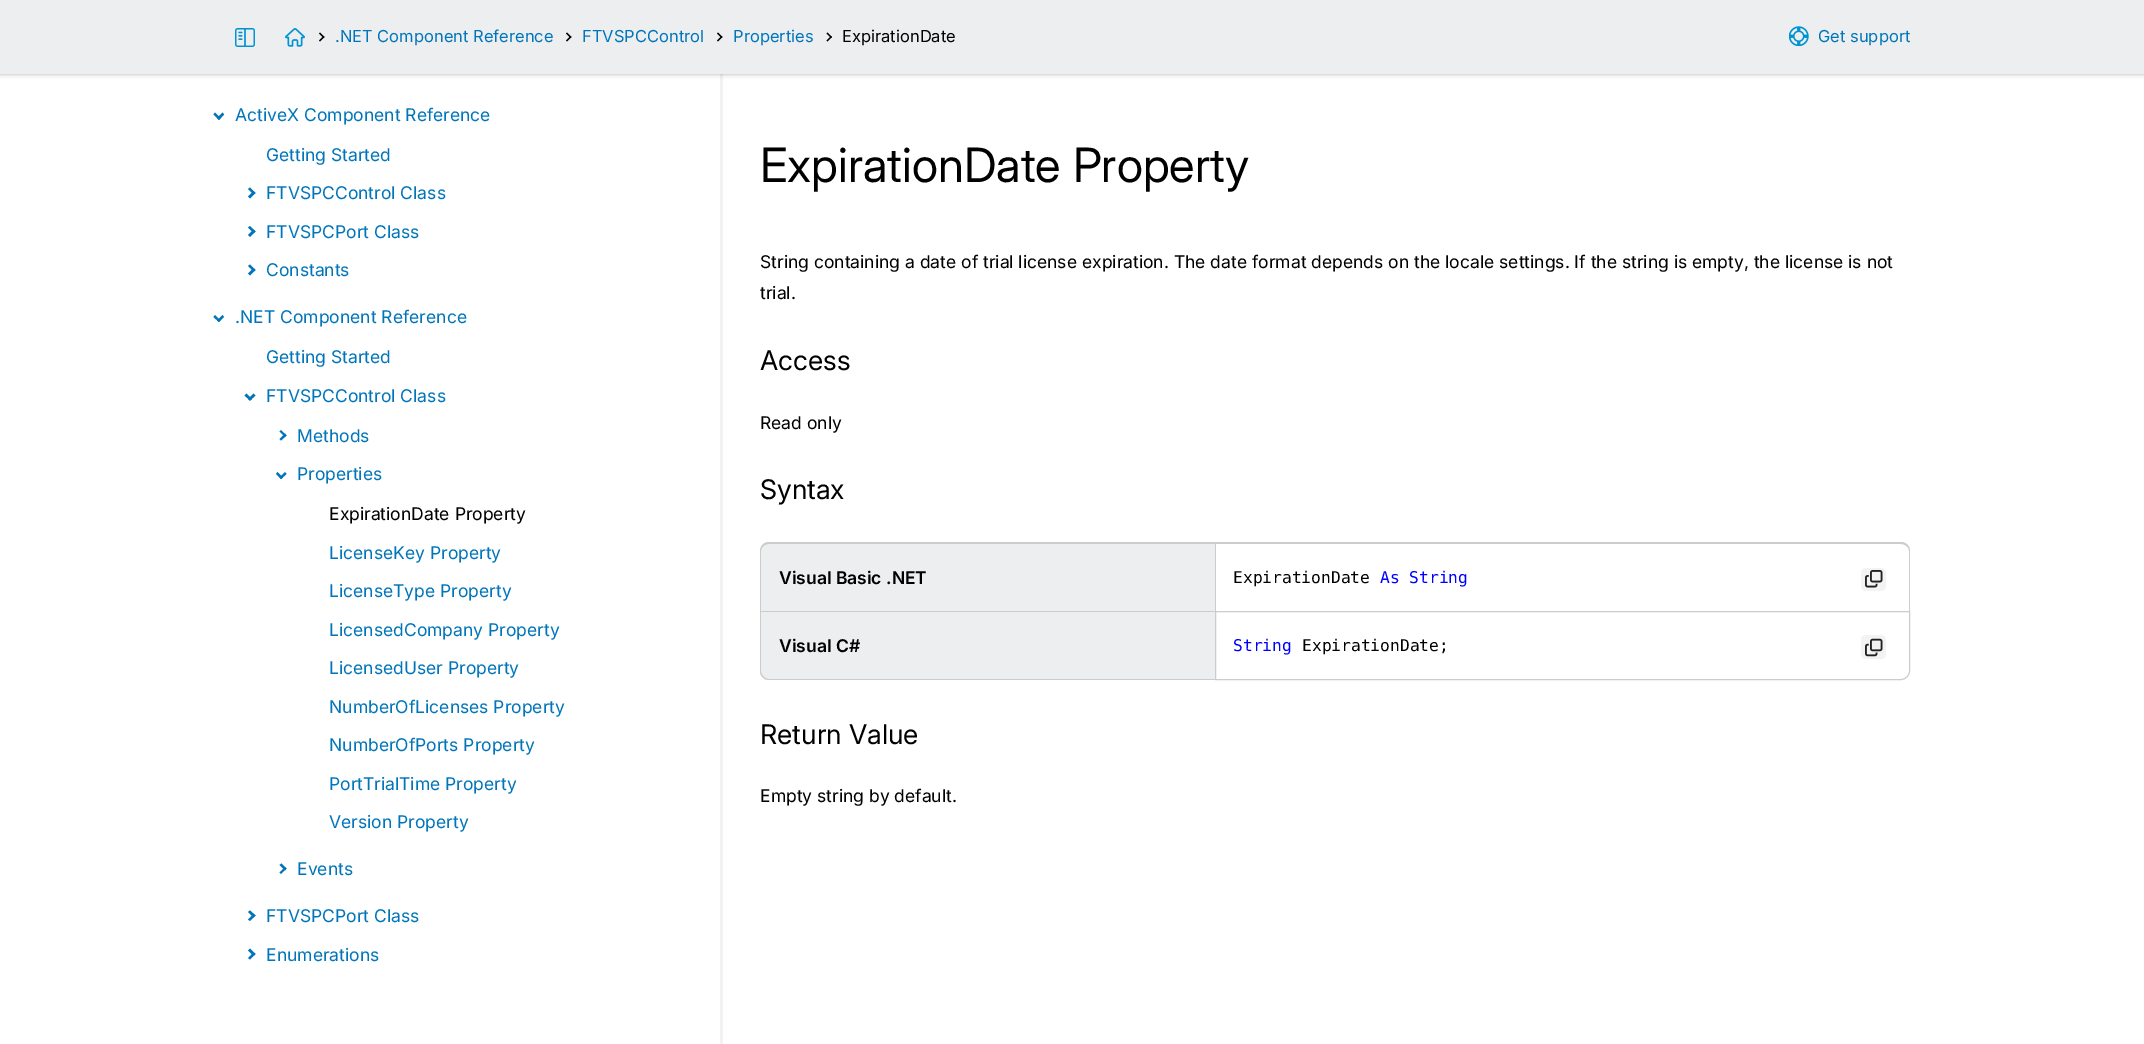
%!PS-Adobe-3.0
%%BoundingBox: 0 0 2144 1044
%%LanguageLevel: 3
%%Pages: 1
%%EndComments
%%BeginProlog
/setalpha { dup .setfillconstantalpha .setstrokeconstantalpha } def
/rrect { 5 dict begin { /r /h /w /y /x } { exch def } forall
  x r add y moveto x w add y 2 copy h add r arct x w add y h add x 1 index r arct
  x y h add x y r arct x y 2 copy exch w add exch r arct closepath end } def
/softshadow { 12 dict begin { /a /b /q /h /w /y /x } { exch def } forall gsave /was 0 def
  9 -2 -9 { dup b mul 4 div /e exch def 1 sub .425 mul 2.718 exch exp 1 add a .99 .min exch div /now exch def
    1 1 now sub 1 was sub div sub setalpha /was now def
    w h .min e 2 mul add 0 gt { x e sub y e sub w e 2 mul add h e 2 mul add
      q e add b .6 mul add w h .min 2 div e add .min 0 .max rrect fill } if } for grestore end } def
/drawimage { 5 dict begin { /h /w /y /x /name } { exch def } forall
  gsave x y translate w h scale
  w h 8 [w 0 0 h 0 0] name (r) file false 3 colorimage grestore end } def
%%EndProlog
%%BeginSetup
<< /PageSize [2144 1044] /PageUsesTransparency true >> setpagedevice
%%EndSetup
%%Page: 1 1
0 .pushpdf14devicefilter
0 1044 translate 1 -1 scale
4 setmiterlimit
1 setgray
0 0 2144 1044 rectfill
0.949 setgray
720 74 3 970 rectfill
0 setgray
0 0 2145 74 0 2.5 0.3 softshadow
0.929 0.933 0.937 setrgbcolor
0 0 2144 74 rectfill
(images/1.raw) 235 28 20 19 drawimage
(images/2.raw) 285 28 20 19 drawimage
0 setgray
newpath 319 33.5 moveto 320 32.5 lineto 324.5 37 lineto 323.5 38 lineto closepath fill
newpath 319 40.5 moveto 323.5 36 lineto 324.5 37 lineto 320 41.5 lineto closepath fill
newpath 566 33.5 moveto 567 32.5 lineto 571.5 37 lineto 570.5 38 lineto closepath fill
newpath 566 40.5 moveto 570.5 36 lineto 571.5 37 lineto 567 41.5 lineto closepath fill
newpath 717 33.5 moveto 718 32.5 lineto 722.5 37 lineto 721.5 38 lineto closepath fill
newpath 717 40.5 moveto 721.5 36 lineto 722.5 37 lineto 718 41.5 lineto closepath fill
newpath 826.5 33.5 moveto 827.5 32.5 lineto 832 37 lineto 831 38 lineto closepath fill
newpath 826.5 40.5 moveto 831 36 lineto 832 37 lineto 827.5 41.5 lineto closepath fill
(images/3.raw) 1789 26 20 20 drawimage
0 0.459 0.725 setrgbcolor
newpath 222.5 112.5 moveto 224 114.5 lineto 219 120 lineto 217 118 lineto closepath fill
newpath 215 112.5 moveto 220.5 118 lineto 219 120 lineto 213.5 114.5 lineto closepath fill
newpath 248 189 moveto 250 187.5 lineto 255.5 193 lineto 253.5 194.5 lineto closepath fill
newpath 248 196.5 moveto 253.5 191 lineto 255.5 193 lineto 250 198.5 lineto closepath fill
newpath 248 227.5 moveto 250 226 lineto 255.5 231.5 lineto 253.5 233 lineto closepath fill
newpath 248 235 moveto 253.5 229.5 lineto 255.5 231.5 lineto 250 237 lineto closepath fill
newpath 248 266 moveto 250 264.5 lineto 255.5 270 lineto 253.5 271.5 lineto closepath fill
newpath 248 273.5 moveto 253.5 268 lineto 255.5 270 lineto 250 275.5 lineto closepath fill
newpath 222.5 315 moveto 224 317 lineto 219 322 lineto 217 320.5 lineto closepath fill
newpath 215 315 moveto 220.5 320.5 lineto 219 322 lineto 213.5 317 lineto closepath fill
newpath 253.5 393.5 moveto 255.5 395.5 lineto 250 400.5 lineto 248 399 lineto closepath fill
newpath 246.5 393.5 moveto 252 399 lineto 250 400.5 lineto 244.5 395.5 lineto closepath fill
newpath 279.5 431.5 moveto 281 430 lineto 286.5 435.5 lineto 285 437 lineto closepath fill
newpath 279.5 439 moveto 285 433.5 lineto 286.5 435.5 lineto 281 440.5 lineto closepath fill
newpath 285 472 moveto 286.5 474 lineto 281 479 lineto 279.5 477.5 lineto closepath fill
newpath 277.5 472 moveto 283 477.5 lineto 281 479 lineto 276 474 lineto closepath fill
newpath 279.5 865 moveto 281.5 863.5 lineto 286.5 868.5 lineto 285 870.5 lineto closepath fill
newpath 279.5 872.5 moveto 285 867 lineto 286.5 868.5 lineto 281 874 lineto closepath fill
newpath 248 912 moveto 250 910.5 lineto 255.5 915.5 lineto 253.5 917.5 lineto closepath fill
newpath 248 919.5 moveto 253.5 914 lineto 255.5 915.5 lineto 250 921 lineto closepath fill
newpath 248 950.5 moveto 250 948.5 lineto 255.5 954 lineto 253.5 956 lineto closepath fill
newpath 248 958 moveto 253.5 952.5 lineto 255.5 954 lineto 250 959.5 lineto closepath fill
0.929 0.933 0.937 setrgbcolor
newpath 769 543 moveto 1215 543 lineto 1215 611 lineto 760 611 lineto 760 552 lineto 760 547 764 543 769 543 curveto closepath fill
0.8 setgray
newpath 769 542 moveto 1215 542 lineto 1215 611 lineto 760 611 lineto 760 551 lineto 760 546 764 542 769 542 curveto closepath 769 544 moveto 1215 544 lineto 1215 611 lineto 761 611 lineto 761 551 lineto 761 547 765 544 769 544 curveto closepath eofill
newpath 1215 542 moveto 1901 542 lineto 1906 542 1910 546 1910 551 curveto 1910 611 lineto 1215 611 lineto closepath 1216 544 moveto 1901 544 lineto 1905 544 1909 547 1909 551 curveto 1909 611 lineto 1216 611 lineto closepath eofill
0.953 setgray
1861 568 25 23 5 rrect fill
(images/4.raw) 1865 570 18 18 drawimage
0.929 0.933 0.937 setrgbcolor
newpath 760 611 moveto 1215 611 lineto 1215 680 lineto 769 680 lineto 764 680 760 676 760 671 curveto closepath fill
0.8 setgray
newpath 760 611 moveto 1215 611 lineto 1215 680 lineto 769 680 lineto 764 680 760 676 760 671 curveto closepath 761 612 moveto 1215 612 lineto 1215 679 lineto 769 679 lineto 765 679 761 675 761 671 curveto closepath eofill
newpath 1215.5 611.5 moveto 1909.5 611.5 lineto 1909.5 671 lineto 1909.5 675.5 1905.5 679.5 1901 679.5 curveto 1215.5 679.5 lineto closepath stroke
0.953 setgray
1861 635 25 24 5 rrect fill
(images/5.raw) 1865 638 18 19 drawimage
/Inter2-Regular [16.5 0 0 -16.5 0 0] selectfont
0 0.459 0.725 setrgbcolor
335 42 moveto (.NET Component Reference) show
582 42 moveto (FTVSPCControl) show
733 42 moveto (Properties) show
0 setgray
842 42 moveto (ExpirationDate) show
0 0.459 0.725 setrgbcolor
1818 42 moveto (Get support) show
/Inter2-Regular [17.5 0 0 -17.5 0 0] selectfont
235 121 moveto (ActiveX Component Reference) show
266 161 moveto (Getting Started) show
266 199 moveto (FTVSPCControl Class) show
266 238 moveto (FTVSPCPort Class) show
266 276 moveto (Constants) show
235 323 moveto (.NET Component Reference) show
266 363 moveto (Getting Started) show
266 402 moveto (FTVSPCControl Class) show
297 442 moveto (Methods) show
297 480 moveto (Properties) show
0 setgray
329 520 moveto (ExpirationDate Property) show
0 0.459 0.725 setrgbcolor
329 559 moveto (LicenseKey Property) show
329 597 moveto (LicenseType Property) show
329 636 moveto (LicensedCompany Property) show
329 674 moveto (LicensedUser Property) show
329 713 moveto (NumberOfLicenses Property) show
329 751 moveto (NumberOfPorts Property) show
329 790 moveto (PortTrialTime Property) show
329 828 moveto (Version Property) show
297 875 moveto (Events) show
266 922 moveto (FTVSPCPort Class) show
266 961 moveto (Enumerations) show
/Inter-Regular [47.25 0 0 -47.25 0 0] selectfont
0 setgray
760 182 moveto (ExpirationDate Property) show
/Inter2-Regular [17.5 0 0 -17.5 0 0] selectfont
760 268 moveto (String containing a date of trial license expiration. The date format depends on the locale settings. If the string is empty, the license is not) show
760 299 moveto (trial.) show
/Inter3-Regular [27 0 0 -27 0 0] selectfont
760 370 moveto (Access) show
/Inter2-Regular [17.5 0 0 -17.5 0 0] selectfont
760 429 moveto (Read only) show
/Inter3-Regular [27 0 0 -27 0 0] selectfont
760 499 moveto (Syntax) show
/Inter-SemiBold [17.5 0 0 -17.5 0 0] selectfont
779 584 moveto (Visual Basic .NET) show
/DejaVuSansMono-Regular [16.25 0 0 -16.25 0 0] selectfont
1233 583 moveto (ExpirationDate) show
0 0 1 setrgbcolor
1380 583 moveto (As String) show
/Inter-SemiBold [17.5 0 0 -17.5 0 0] selectfont
0 setgray
779 652 moveto (Visual C#) show
/DejaVuSansMono-Regular [16.25 0 0 -16.25 0 0] selectfont
0 0 1 setrgbcolor
1233 651 moveto (String) show
0 setgray
1302 651 moveto (ExpirationDate;) show
/Inter3-Regular [27 0 0 -27 0 0] selectfont
760 744 moveto (Return Value) show
/Inter2-Regular [17.5 0 0 -17.5 0 0] selectfont
760 802 moveto (Empty string by default.) show
.poppdf14devicefilter showpage
%%EOF
